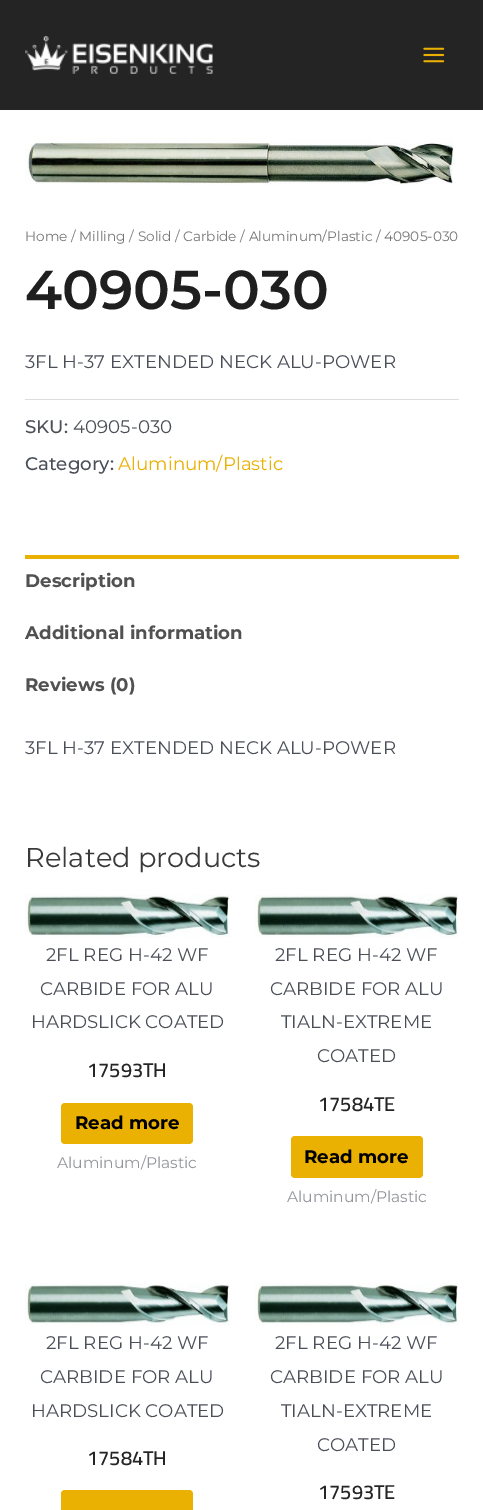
%!PS-Adobe-3.0
%%BoundingBox: 0 0 483 1510
%%LanguageLevel: 3
%%Pages: 1
%%EndComments
%%BeginProlog
/rrect { 5 dict begin { /r /h /w /y /x } { exch def } forall
  x r add y moveto x w add y 2 copy h add r arct x w add y h add x 1 index r arct
  x y h add x y r arct x y 2 copy exch w add exch r arct closepath end } def
/drawimage { 5 dict begin { /h /w /y /x /name } { exch def } forall
  gsave x y translate w h scale
  w h 8 [w 0 0 h 0 0] name (r) file false 3 colorimage grestore end } def
%%EndProlog
%%BeginSetup
<< /PageSize [483 1510] >> setpagedevice
%%EndSetup
%%Page: 1 1
0 1510 translate 1 -1 scale
4 setmiterlimit
1 setgray
0 0 483 1510 rectfill
0.141 setgray
0 0 483 110 rectfill
(images/1.raw) 25 36 188 38 drawimage
(images/2.raw) 423 47 22 16 drawimage
(images/3.raw) 25 138 429 47 drawimage
0.867 setgray
25 399 434 1 rectfill
0.918 0.69 0.008 setrgbcolor
25 555 434 4 rectfill
(images/4.raw) 25 894 205 44 drawimage
61 1103 132 41 4 rrect fill
(images/5.raw) 255 894 203 44 drawimage
291 1136 132 42 4 rrect fill
(images/6.raw) 25 1283 205 43 drawimage
61 1490 132 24 4 rrect fill
(images/7.raw) 255 1283 204 43 drawimage
/Montserrat-Regular [13.7 0 0 -13.7 0 0] selectfont
0.467 setgray
25 241 moveto (Home / Milling / Solid / Carbide / Aluminum/Plastic / 40905-030) show
/Montserrat-SemiBold [54.75 0 0 -54.75 0 0] selectfont
0.122 setgray
25 309 moveto (40905-030) show
/Montserrat-Regular [18.25 0 0 -18.25 0 0] selectfont
0.294 0.31 0.345 setrgbcolor
25 368 moveto (3FL H-37 EXTENDED NECK ALU-POWER) show
/Montserrat-Medium [18.25 0 0 -18.25 0 0] selectfont
25 433 moveto (SKU:) show
/Montserrat-Regular [18.25 0 0 -18.25 0 0] selectfont
73 433 moveto (40905-030) show
/Montserrat-Medium [18.25 0 0 -18.25 0 0] selectfont
25 470 moveto (Category:) show
/Montserrat-Regular [18.25 0 0 -18.25 0 0] selectfont
0.918 0.69 0.008 setrgbcolor
118 470 moveto (Aluminum/Plastic) show
/Montserrat-Bold [18.25 0 0 -18.25 0 0] selectfont
0.318 setgray
25 587 moveto (Description) show
25 639 moveto (Additional information) show
25 691 moveto (Reviews \(0\)) show
/Montserrat-Regular [18.25 0 0 -18.25 0 0] selectfont
0.294 0.31 0.345 setrgbcolor
25 754 moveto (3FL H-37 EXTENDED NECK ALU-POWER) show
/Montserrat-Regular [27.25 0 0 -27.25 0 0] selectfont
0.227 setgray
25 867 moveto (Related products) show
/Montserrat-Regular [18.25 0 0 -18.25 0 0] selectfont
0.294 0.31 0.345 setrgbcolor
46 961 moveto (2FL REG H-42 WF) show
40 995 moveto (CARBIDE FOR ALU) show
31 1028 moveto (HARDSLICK COATED) show
/Cairo-SemiBold [20 0 0 -20 0 0] selectfont
0.145 setgray
87 1077 moveto (17593TH) show
/Montserrat-Bold [18.25 0 0 -18.25 0 0] selectfont
0 setgray
75 1129 moveto (Read more) show
/Montserrat-Regular [15.5 0 0 -15.5 0 0] selectfont
0.576 0.584 0.608 setrgbcolor
57 1168 moveto (Aluminum/Plastic) show
/Montserrat-Regular [18.25 0 0 -18.25 0 0] selectfont
0.294 0.31 0.345 setrgbcolor
275 961 moveto (2FL REG H-42 WF) show
270 995 moveto (CARBIDE FOR ALU) show
281 1028 moveto (TIALN-EXTREME) show
317 1062 moveto (COATED) show
/Cairo-SemiBold [20 0 0 -20 0 0] selectfont
0.145 setgray
318 1111 moveto (17584TE) show
/Montserrat-Bold [18.25 0 0 -18.25 0 0] selectfont
0 setgray
304 1163 moveto (Read more) show
/Montserrat-Regular [15.5 0 0 -15.5 0 0] selectfont
0.576 0.584 0.608 setrgbcolor
287 1202 moveto (Aluminum/Plastic) show
/Montserrat-Regular [18.25 0 0 -18.25 0 0] selectfont
0.294 0.31 0.345 setrgbcolor
46 1349 moveto (2FL REG H-42 WF) show
40 1383 moveto (CARBIDE FOR ALU) show
31 1417 moveto (HARDSLICK COATED) show
/Cairo-SemiBold [20 0 0 -20 0 0] selectfont
0.145 setgray
87 1465 moveto (17584TH) show
/Montserrat-Regular [18.25 0 0 -18.25 0 0] selectfont
0.294 0.31 0.345 setrgbcolor
275 1349 moveto (2FL REG H-42 WF) show
270 1383 moveto (CARBIDE FOR ALU) show
281 1417 moveto (TIALN-EXTREME) show
317 1451 moveto (COATED) show
/Cairo-SemiBold [20 0 0 -20 0 0] selectfont
0.145 setgray
318 1499 moveto (17593TE) show
showpage
%%EOF
